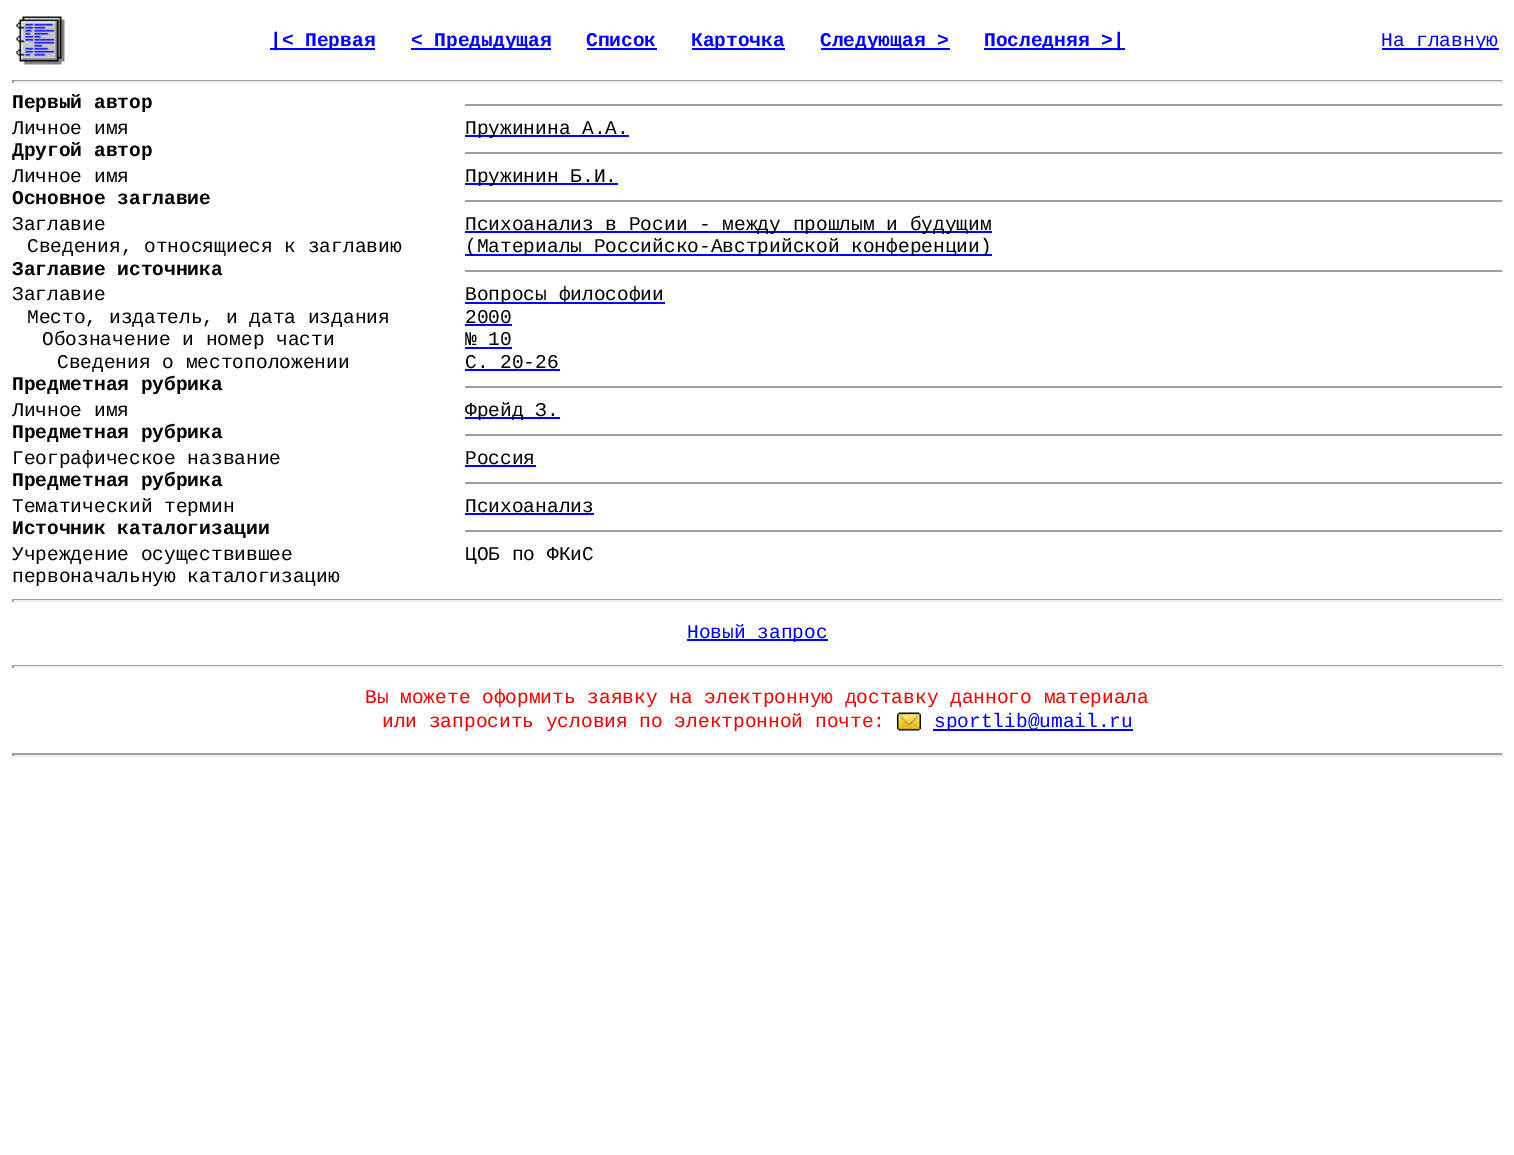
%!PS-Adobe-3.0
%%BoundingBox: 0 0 1514 1155
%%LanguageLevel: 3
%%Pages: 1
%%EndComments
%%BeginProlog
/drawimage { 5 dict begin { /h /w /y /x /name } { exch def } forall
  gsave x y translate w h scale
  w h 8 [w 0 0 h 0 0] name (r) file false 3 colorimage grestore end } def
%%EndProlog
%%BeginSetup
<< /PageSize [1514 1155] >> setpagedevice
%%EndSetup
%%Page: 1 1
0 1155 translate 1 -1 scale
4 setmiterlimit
1 setgray
0 0 1514 1155 rectfill
(images/1.raw) 16 16 49 49 drawimage
0 0 1 setrgbcolor
270 48 105 2 rectfill
411 48 140 2 rectfill
587 48 70 2 rectfill
692 48 93 2 rectfill
821 48 129 2 rectfill
984 48 141 2 rectfill
1382 48 117 2 rectfill
0.624 setgray
12 80 1491 1 rectfill
0.933 setgray
1502 80 2 3 rectfill
12 81 1491 2 rectfill
0.624 setgray
12 80 2 3 rectfill
465 104 1038 2 rectfill
0.933 setgray
1502 104 2 2 rectfill
0 0 1 setrgbcolor
465 135 164 2 rectfill
0.624 setgray
465 152 1038 2 rectfill
0.933 setgray
1502 152 2 2 rectfill
0 0 1 setrgbcolor
465 183 153 2 rectfill
0.624 setgray
465 200 1038 2 rectfill
0.933 setgray
1502 200 2 2 rectfill
0 0 1 setrgbcolor
465 231 527 2 rectfill
465 254 527 2 rectfill
0.624 setgray
465 270 1038 2 rectfill
0.933 setgray
1502 270 2 2 rectfill
0 0 1 setrgbcolor
465 302 200 2 rectfill
465 324 47 2 rectfill
465 347 47 2 rectfill
465 369 95 2 rectfill
0.624 setgray
465 386 1038 2 rectfill
0.933 setgray
1502 386 2 2 rectfill
0 0 1 setrgbcolor
465 417 95 2 rectfill
0.624 setgray
465 434 1038 2 rectfill
0.933 setgray
1502 434 2 2 rectfill
0 0 1 setrgbcolor
465 465 71 2 rectfill
0.624 setgray
465 482 1038 2 rectfill
0.933 setgray
1502 482 2 2 rectfill
0 0 1 setrgbcolor
465 513 129 2 rectfill
0.624 setgray
465 530 1038 2 rectfill
0.933 setgray
1502 530 2 2 rectfill
0.624 setgray
12 599 1491 1 rectfill
0.933 setgray
1502 599 2 3 rectfill
12 600 1491 2 rectfill
0.624 setgray
12 599 2 3 rectfill
0 0 1 setrgbcolor
687 639 141 2 rectfill
0.624 setgray
12 665 1491 1 rectfill
0.933 setgray
1502 665 2 3 rectfill
12 666 1491 2 rectfill
0.624 setgray
12 665 2 3 rectfill
(images/2.raw) 897 712 24 19 drawimage
0 0 1 setrgbcolor
933 729 200 2 rectfill
0.624 setgray
12 753 1491 2 rectfill
0.933 setgray
1502 753 2 3 rectfill
12 755 1491 2 rectfill
0.624 setgray
12 753 2 3 rectfill
/LiberationMono-Bold [19.5 0 0 -19.5 0 0] selectfont
0 0 1 setrgbcolor
270 46 moveto (|< Первая) show
411 46 moveto (< Предыдущая) show
586 46 moveto (Список) show
691 46 moveto (Карточка) show
820 46 moveto (Следующая >) show
984 46 moveto (Последняя >|) show
/LiberationMono-Regular [19.5 0 0 -19.5 0 0] selectfont
1381 46 moveto (На главную) show
/LiberationMono-Bold [19.5 0 0 -19.5 0 0] selectfont
0 setgray
12 108 moveto (Первый автор) show
/LiberationMono-Regular [19.5 0 0 -19.5 0 0] selectfont
12 134 moveto (Личное имя) show
465 134 moveto (Пружинина А.А.) show
/LiberationMono-Bold [19.5 0 0 -19.5 0 0] selectfont
12 156 moveto (Другой автор) show
/LiberationMono-Regular [19.5 0 0 -19.5 0 0] selectfont
12 182 moveto (Личное имя) show
465 182 moveto (Пружинин Б.И.) show
/LiberationMono-Bold [19.5 0 0 -19.5 0 0] selectfont
12 204 moveto (Основное заглавие) show
/LiberationMono-Regular [19.5 0 0 -19.5 0 0] selectfont
12 230 moveto (Заглавие) show
465 230 moveto (Психоанализ в Росии - между прошлым и будущим) show
27 252 moveto (Сведения, относящиеся к заглавию) show
465 252 moveto (\(Материалы Российско-Австрийской конференции\)) show
/LiberationMono-Bold [19.5 0 0 -19.5 0 0] selectfont
12 275 moveto (Заглавие источника) show
/LiberationMono-Regular [19.5 0 0 -19.5 0 0] selectfont
12 300 moveto (Заглавие) show
465 300 moveto (Вопросы философии) show
27 323 moveto (Место, издатель, и дата издания) show
465 323 moveto (2000) show
42 345 moveto (Обозначение и номер части) show
465 345 moveto (№ 10) show
57 368 moveto (Сведения о местоположении) show
465 368 moveto (С. 20-26) show
/LiberationMono-Bold [19.5 0 0 -19.5 0 0] selectfont
12 390 moveto (Предметная рубрика) show
/LiberationMono-Regular [19.5 0 0 -19.5 0 0] selectfont
12 416 moveto (Личное имя) show
465 416 moveto (Фрейд З.) show
/LiberationMono-Bold [19.5 0 0 -19.5 0 0] selectfont
12 438 moveto (Предметная рубрика) show
/LiberationMono-Regular [19.5 0 0 -19.5 0 0] selectfont
12 464 moveto (Географическое название) show
465 464 moveto (Россия) show
/LiberationMono-Bold [19.5 0 0 -19.5 0 0] selectfont
12 486 moveto (Предметная рубрика) show
/LiberationMono-Regular [19.5 0 0 -19.5 0 0] selectfont
12 512 moveto (Тематический термин) show
465 512 moveto (Психоанализ) show
/LiberationMono-Bold [19.5 0 0 -19.5 0 0] selectfont
12 534 moveto (Источник каталогизации) show
/LiberationMono-Regular [19.5 0 0 -19.5 0 0] selectfont
12 560 moveto (Учреждение осуществившее) show
12 582 moveto (первоначальную каталогизацию) show
465 560 moveto (ЦОБ по ФКиС) show
0 0 1 setrgbcolor
687 638 moveto (Новый запрос) show
0.941 0 0 setrgbcolor
365 703 moveto (Вы можете оформить заявку на электронную доставку данного материала) show
382 727 moveto (или запросить условия по электронной почте:) show
0 0 1 setrgbcolor
934 727 moveto (sportlib@umail.ru) show
showpage
%%EOF
